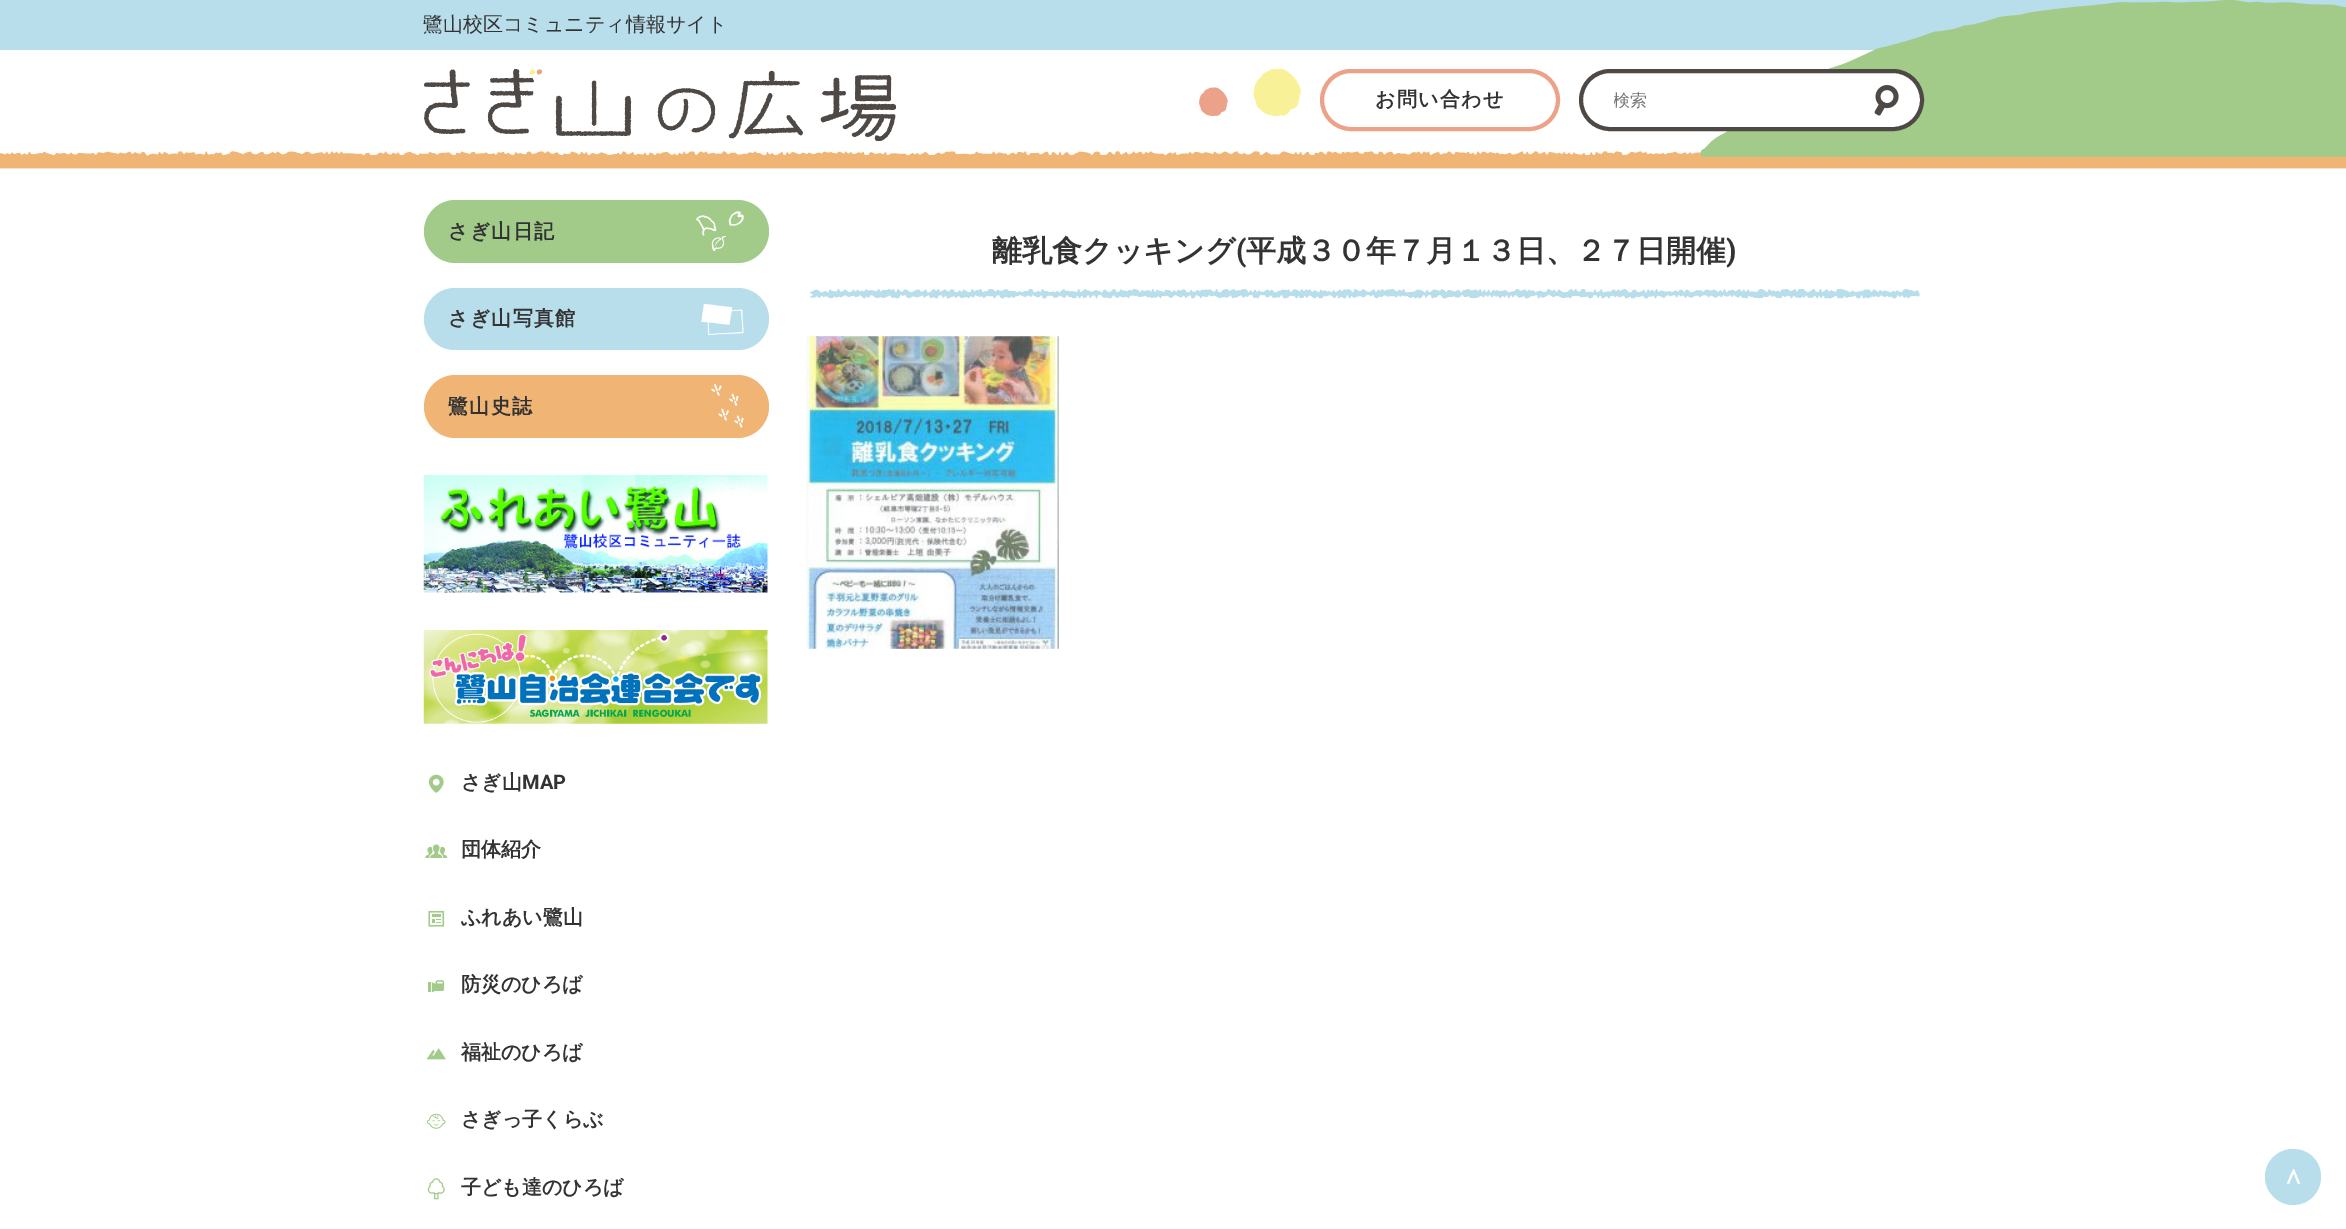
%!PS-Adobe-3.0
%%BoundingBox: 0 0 2346 1229
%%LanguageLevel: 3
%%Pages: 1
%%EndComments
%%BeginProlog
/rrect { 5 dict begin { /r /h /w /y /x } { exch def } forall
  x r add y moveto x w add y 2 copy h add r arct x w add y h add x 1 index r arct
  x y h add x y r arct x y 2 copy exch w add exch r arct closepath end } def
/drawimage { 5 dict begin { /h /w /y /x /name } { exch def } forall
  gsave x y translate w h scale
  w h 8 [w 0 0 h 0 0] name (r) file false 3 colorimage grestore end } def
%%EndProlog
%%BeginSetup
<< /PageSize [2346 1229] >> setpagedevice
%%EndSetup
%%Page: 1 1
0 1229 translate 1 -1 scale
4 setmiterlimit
1 setgray
0 0 2346 1229 rectfill
(images/1.raw) 0 0 2346 169 drawimage
(images/2.raw) 424 69 472 72 drawimage
(images/3.raw) 1199 69 102 47 drawimage
0.922 0.635 0.537 setrgbcolor
4 setlinewidth
1322 71 236 58 29 rrect stroke
1 setgray
1581 71 341 58 29 rrect gsave fill grestore
0.31 0.286 0.275 setrgbcolor
stroke
(images/4.raw) 1874 85 25 31 drawimage
0.635 0.796 0.541 setrgbcolor
424 200 345 63 31.5 rrect fill
(images/5.raw) 696 211 48 40 drawimage
0.722 0.867 0.922 setrgbcolor
424 288 345 62 31 rrect fill
(images/6.raw) 701 304 43 31 drawimage
0.941 0.71 0.459 setrgbcolor
424 375 345 63 31.5 rrect fill
(images/7.raw) 711 384 33 44 drawimage
(images/8.raw) 423 475 345 118 drawimage
(images/9.raw) 423 630 345 94 drawimage
(images/10.raw) 428 774 16 19 drawimage
(images/11.raw) 425 844 23 14 drawimage
(images/12.raw) 428 910 17 17 drawimage
(images/13.raw) 428 980 17 13 drawimage
(images/14.raw) 426 1048 20 12 drawimage
(images/15.raw) 427 1113 19 16 drawimage
(images/16.raw) 427 1178 18 22 drawimage
(images/17.raw) 810 289 1110 10 drawimage
(images/18.raw) 806 336 253 313 drawimage
0.722 0.867 0.922 setrgbcolor
newpath 2265 1177 moveto 2265 1161 2278 1149 2293 1149 curveto 2309 1149 2321 1161 2321 1177 curveto 2321 1192 2309 1205 2293 1205 curveto 2278 1205 2265 1192 2265 1177 curveto closepath fill
/WenQuanYiZenHei-Medium [20 0 0 -20 0 0] selectfont
0.2 setgray
423 31 moveto (鷺山校区コミュニティ情報サイト) show
/WenQuanYiZenHei-Bold [20 0 0 -20 0 0] selectfont
1375 106 moveto 1.25 0 (お問い合わせ) ashow
gsave
1614 90 237 23 rectclip
/WenQuanYiZenHei-Medium [17 0 0 -17 0 0] selectfont
0.459 setgray
1613 106 moveto (検索) show
grestore
448 238 moveto 1.25 0 (さぎ山日記) ashow
448 325 moveto 1.25 0 (さぎ山写真館) ashow
448 413 moveto 1.25 0 (鷺山史誌) ashow
461 789 moveto (さぎ山) show
/Roboto-Bold [20 0 0 -20 0 0] selectfont
522 789 moveto (MAP) show
/WenQuanYiZenHei-Bold [20 0 0 -20 0 0] selectfont
461 856 moveto (団体紹介) show
461 924 moveto (ふれあい鷺山) show
461 991 moveto (防災のひろば) show
461 1059 moveto (福祉のひろば) show
461 1126 moveto (さぎっ子くらぶ) show
461 1194 moveto (子ども達のひろば) show
/WenQuanYiZenHei-Bold [30 0 0 -30 0 0] selectfont
992 261 moveto (離乳食クッキング) show
/Roboto-Bold [30 0 0 -30 0 0] selectfont
1236 261 moveto (\() show
/WenQuanYiZenHei-Bold [30 0 0 -30 0 0] selectfont
1246 261 moveto (平成３０年７月１３日、２７日開催) show
/Roboto-Bold [30 0 0 -30 0 0] selectfont
1726 261 moveto (\)) show
/WenQuanYiZenHei-Bold [28 0 0 -28 0 0] selectfont
1 setgray
gsave 2302 1191 translate -90 rotate 0 0 moveto (＞) show grestore
showpage
%%EOF
